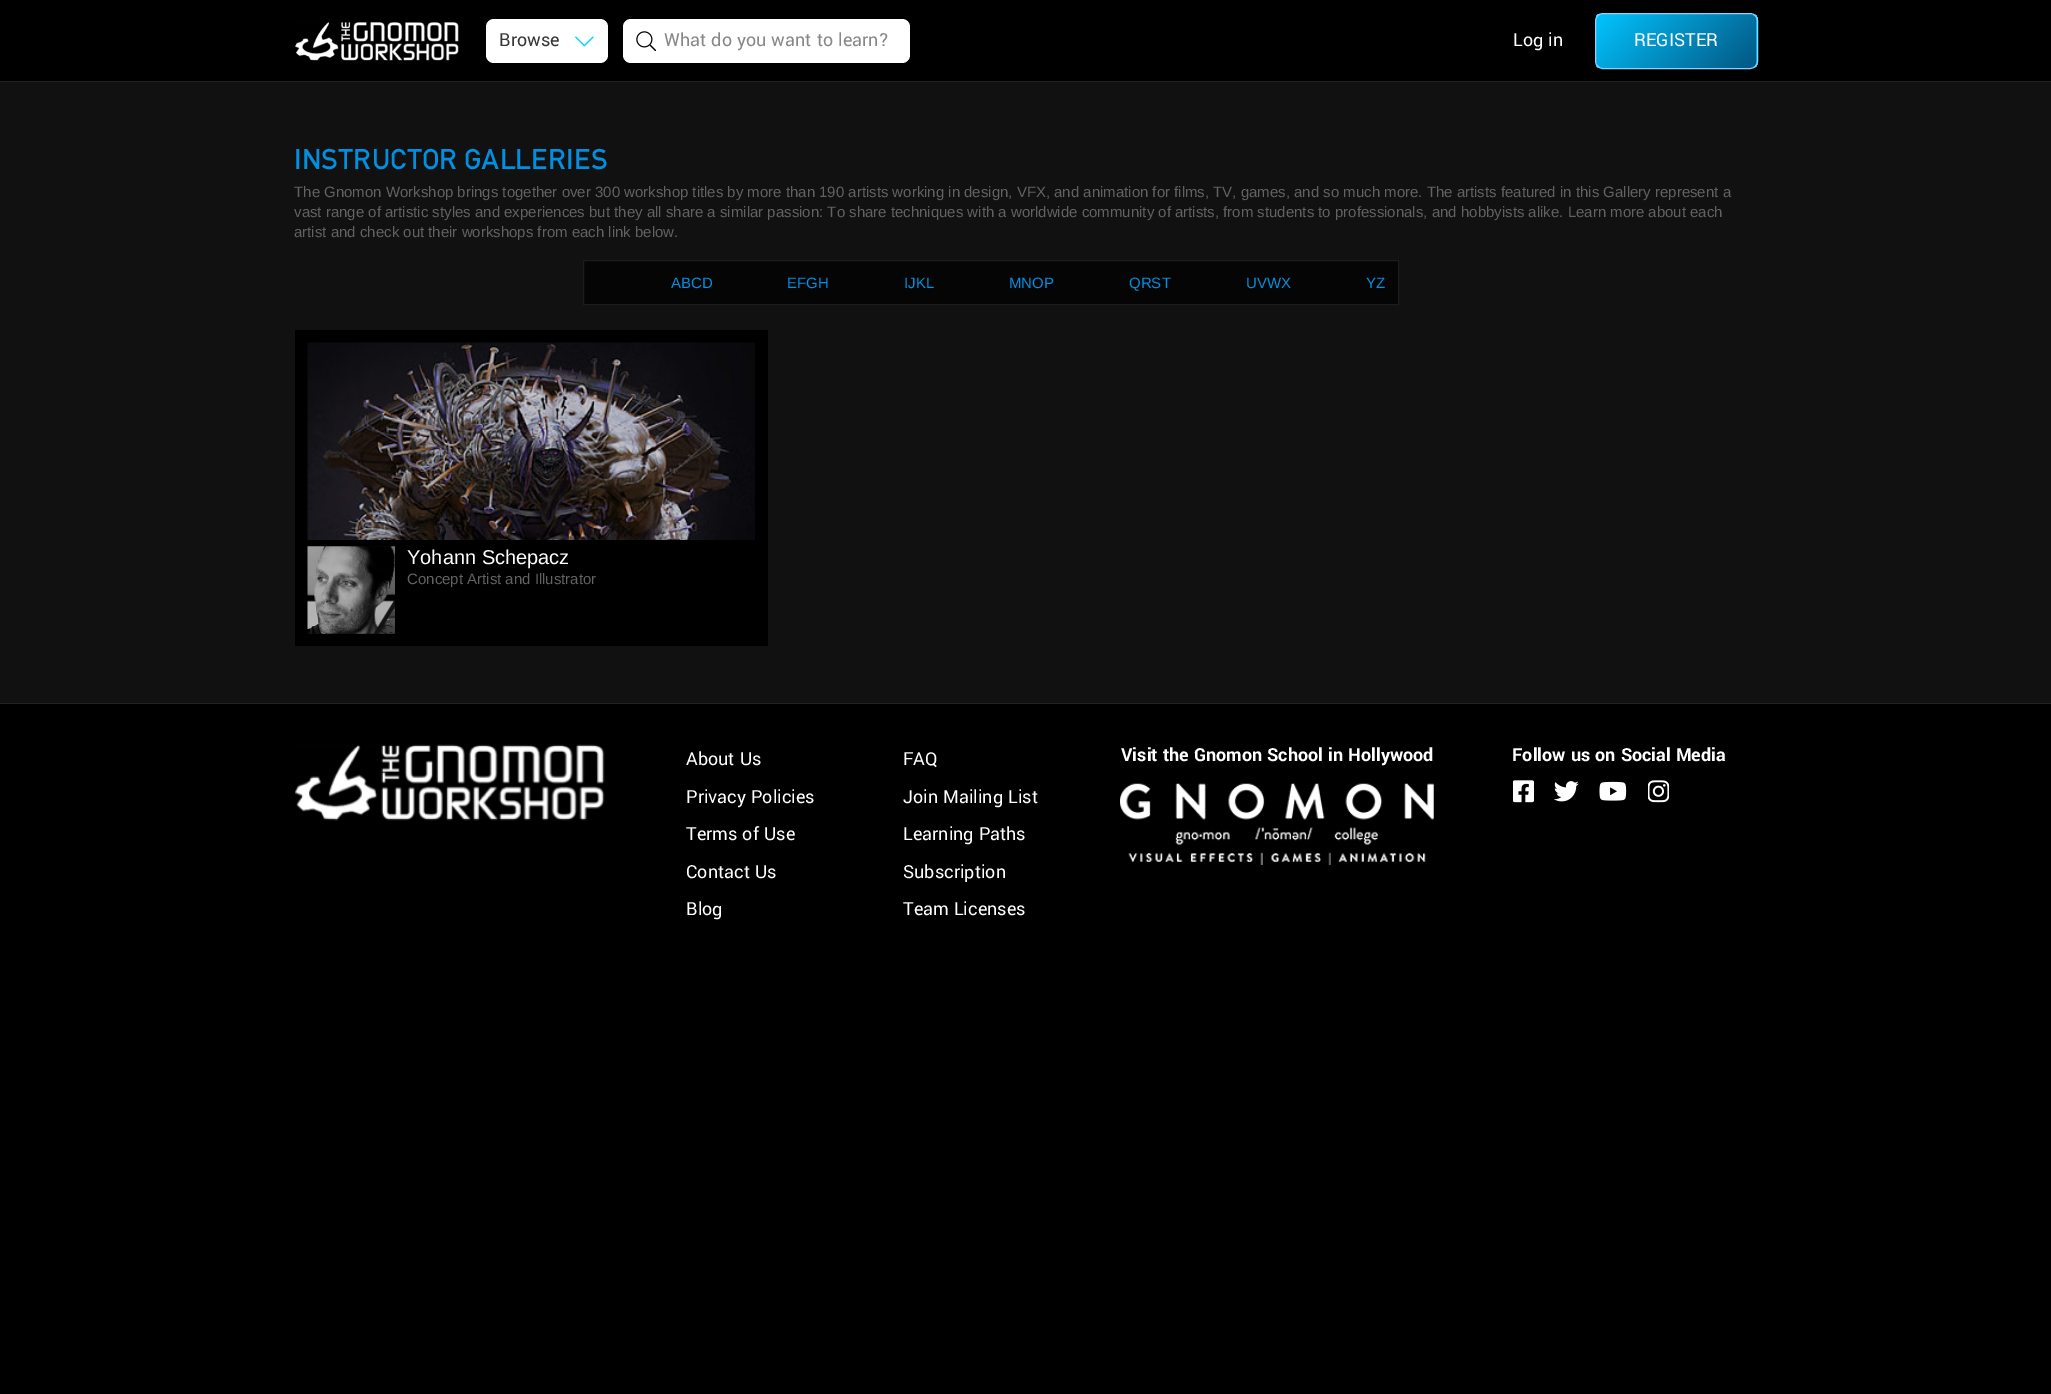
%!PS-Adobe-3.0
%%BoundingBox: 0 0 2051 1394
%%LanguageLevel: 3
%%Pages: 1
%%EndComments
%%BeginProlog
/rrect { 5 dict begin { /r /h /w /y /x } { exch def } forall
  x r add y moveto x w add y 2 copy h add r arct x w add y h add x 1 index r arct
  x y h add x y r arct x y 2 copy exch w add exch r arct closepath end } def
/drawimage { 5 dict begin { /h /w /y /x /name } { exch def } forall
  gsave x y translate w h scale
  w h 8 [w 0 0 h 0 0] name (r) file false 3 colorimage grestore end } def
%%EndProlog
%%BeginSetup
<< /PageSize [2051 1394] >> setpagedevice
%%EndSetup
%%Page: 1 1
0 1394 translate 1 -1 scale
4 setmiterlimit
0 setgray
0 0 2051 1394 rectfill
(images/1.raw) 295 22 164 39 drawimage
1 setgray
486 19 122 44 8 rrect fill
(images/2.raw) 575 36 19 11 drawimage
623 19 287 44 8 rrect fill
(images/3.raw) 636 31 20 20 drawimage
gsave
1595 13 163 56 8 rrect clip newpath
gsave newpath 1596 14 moveto 1756 14 lineto 1756 68 lineto 1596 68 lineto closepath clip newpath
<< /ShadingType 2 /ColorSpace /DeviceRGB /Coords [1623 -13 1730 94] /Extend [true true] /Function << /FunctionType 2 /Domain [0 1] /C0 [0.008 0.769 1] /C1 [0.012 0.337 0.51] /N 1 >> >> shfill grestore
gsave newpath 1756 14 moveto 1758 14 lineto 1758 68 lineto 1756 68 lineto closepath clip newpath
<< /ShadingType 2 /ColorSpace /DeviceRGB /Coords [1783 -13 1890 94] /Extend [true true] /Function << /FunctionType 2 /Domain [0 1] /C0 [0.008 0.769 1] /C1 [0.012 0.337 0.51] /N 1 >> >> shfill grestore
grestore
0.51 0.839 1 setrgbcolor
1595.5 13.5 162 55 7.5 rrect stroke
0.067 setgray
0 82 2051 621 rectfill
0.129 setgray
0 81 2051 1 rectfill
0 703 2051 1 rectfill
0.02 setgray
newpath 583.5 260.5 moveto 1398.5 260.5 lineto 1398.5 304.5 lineto 583.5 304.5 lineto closepath gsave fill grestore
0.11 setgray
stroke
0 setgray
295 330 473 316 rectfill
(images/4.raw) 307 342 448 198 drawimage
(images/5.raw) 307 546 88 88 drawimage
(images/6.raw) 295 744 310 77 drawimage
(images/7.raw) 1120 783 314 82 drawimage
(images/8.raw) 1513 780 21 23 drawimage
(images/9.raw) 1554 781 25 21 drawimage
(images/10.raw) 1599 781 28 20 drawimage
(images/11.raw) 1648 780 21 23 drawimage
/Yantramanav-Regular [20 0 0 -20 0 0] selectfont
0.212 setgray
499 46 moveto (Browse) show
0.533 setgray
664 46 moveto (What do you want to learn?) show
1 setgray
1513 46 moveto (Log in) show
1634 46 moveto (REGISTER) show
/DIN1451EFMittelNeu-Regular [30 0 0 -30 0 0] selectfont
0.008 0.561 0.875 setrgbcolor
294 169 moveto -8 0 32 (INSTRUCTOR GALLERIES) widthshow
/LiberationSans-Regular [15 0 0 -15 0 0] selectfont
0.384 setgray
294 197 moveto (The Gnomon Workshop brings together over 300 workshop titles by more than 190 artists working in design, VFX, and animation for films, TV, games, and so much more. The artists featured in this Gallery represent a) show
294 217 moveto (vast range of artistic styles and experiences but they all share a similar passion: To share techniques with a worldwide community of artists, from students to professionals, and hobbyists alike. Learn more about each) show
294 237 moveto (artist and check out their workshops from each link below.) show
0.008 0.561 0.875 setrgbcolor
671 288 moveto (ABCD) show
787 288 moveto (EFGH) show
904 288 moveto (IJKL) show
1009 288 moveto (MNOP) show
1129 288 moveto (QRST) show
1246 288 moveto (UVWX) show
1366 288 moveto (YZ) show
/LiberationSans-Regular [20 0 0 -20 0 0] selectfont
1 setgray
407 564 moveto (Yohann Schepacz) show
/LiberationSans-Regular [15 0 0 -15 0 0] selectfont
0.384 setgray
407 584 moveto (Concept Artist and Illustrator) show
/Yantramanav-Regular [20 0 0 -20 0 0] selectfont
1 setgray
686 765 moveto (About Us) show
686 803 moveto (Privacy Policies) show
686 840 moveto (Terms of Use) show
686 878 moveto (Contact Us) show
686 915 moveto (Blog) show
903 765 moveto (FAQ) show
903 803 moveto (Join Mailing List) show
903 840 moveto (Learning Paths) show
903 878 moveto (Subscription) show
903 915 moveto (Team Licenses) show
/Yantramanav-Bold [20 0 0 -20 0 0] selectfont
1121 761 moveto (Visit the Gnomon School in Hollywood) show
1512 761 moveto (Follow us on Social Media) show
showpage
%%EOF
